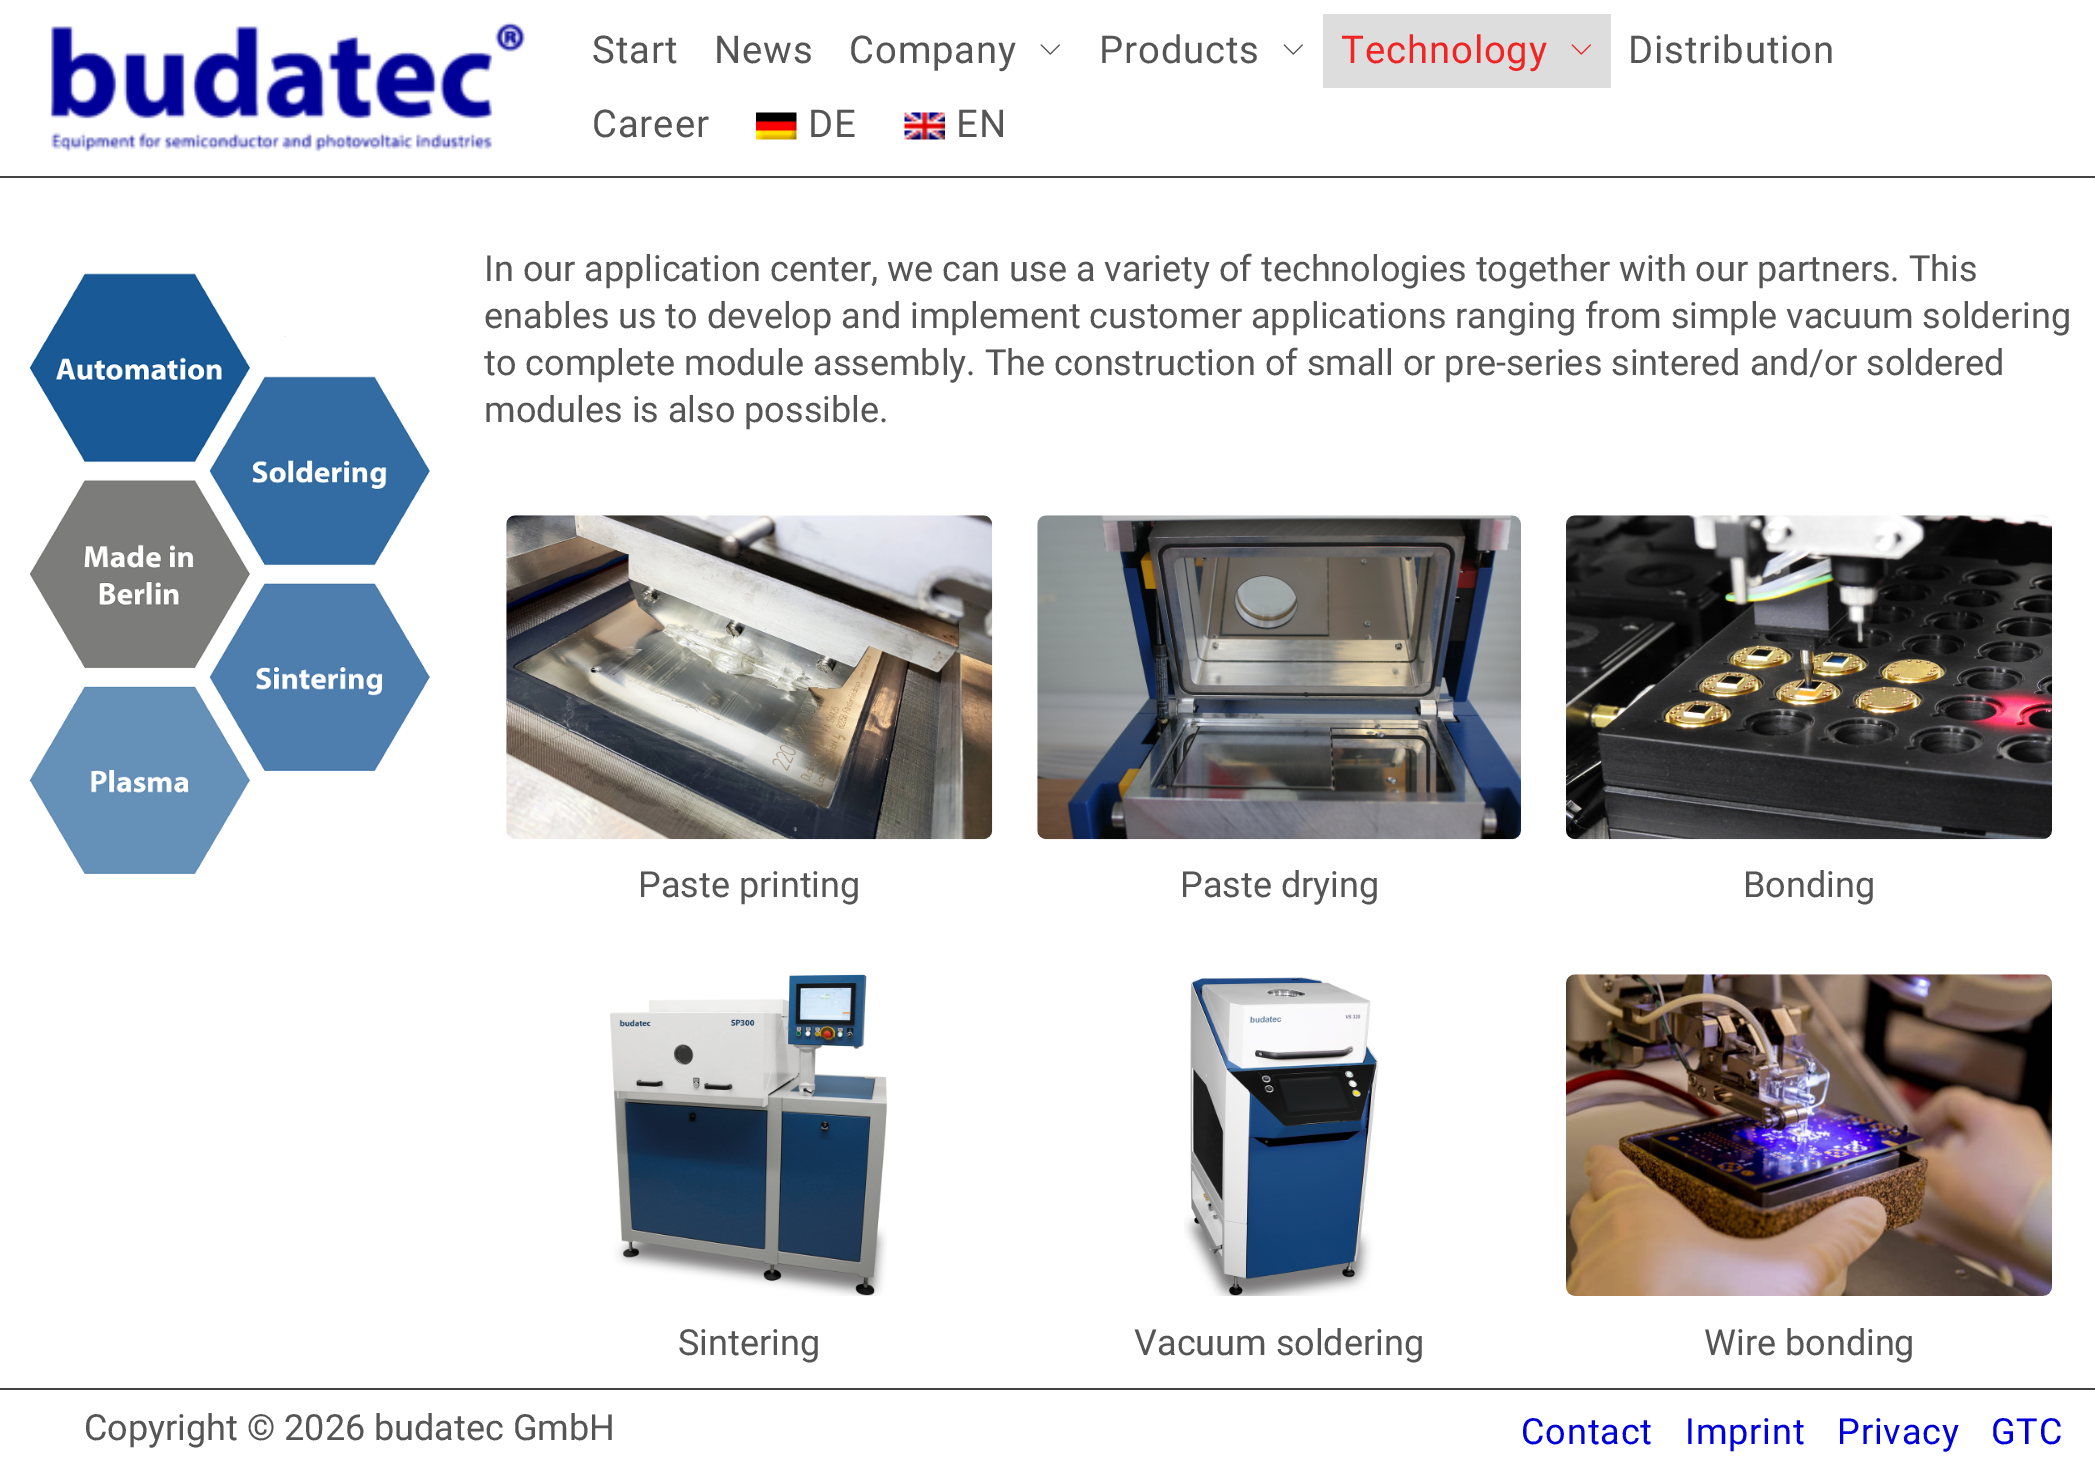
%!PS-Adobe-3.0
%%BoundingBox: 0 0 2095 1474
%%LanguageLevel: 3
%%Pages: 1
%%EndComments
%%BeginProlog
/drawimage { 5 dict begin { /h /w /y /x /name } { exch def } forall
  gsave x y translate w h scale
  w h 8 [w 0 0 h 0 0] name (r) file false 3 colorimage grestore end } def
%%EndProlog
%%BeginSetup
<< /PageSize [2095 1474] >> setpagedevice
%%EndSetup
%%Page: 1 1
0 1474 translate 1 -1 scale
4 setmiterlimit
1 setgray
0 0 2095 1474 rectfill
0.267 setgray
0 176 2095 2 rectfill
(images/1.raw) 49 22 476 130 drawimage
(images/2.raw) 1040 44 20 11 drawimage
(images/2.raw) 1283 44 20 11 drawimage
0.867 setgray
1323 14 288 74 rectfill
(images/3.raw) 1571 44 20 11 drawimage
(images/4.raw) 756 112 41 28 drawimage
(images/5.raw) 904 112 41 28 drawimage
(images/6.raw) 29 273 401 601 drawimage
(images/7.raw) 506 515 487 325 drawimage
(images/8.raw) 1037 515 484 325 drawimage
(images/9.raw) 1566 515 486 325 drawimage
(images/10.raw) 610 974 277 322 drawimage
(images/11.raw) 1184 977 195 319 drawimage
(images/12.raw) 1566 974 486 322 drawimage
0.267 setgray
0 1388 2095 2 rectfill
/Roboto-Regular [38.25 0 0 -38.25 0 0] selectfont
0.333 setgray
592 63 moveto 0.9 0 (Start) ashow
714 63 moveto 0.9 0 (News) ashow
849 63 moveto 0.9 0 (Company) ashow
1099 63 moveto 0.9 0 (Products) ashow
0.945 0.141 0.141 setrgbcolor
1341 63 moveto 0.9 0 (Technology) ashow
0.333 setgray
1628 63 moveto 0.9 0 (Distribution) ashow
592 137 moveto 0.9 0 (Career) ashow
808 137 moveto 0.9 0 (DE) ashow
956 137 moveto 0.9 0 (EN) ashow
/Roboto-Regular [36 0 0 -36 0 0] selectfont
484 281 moveto (In our application center, we can use a variety of technologies together with our partners. This) show
484 328 moveto (enables us to develop and implement customer applications ranging from simple vacuum soldering) show
484 375 moveto (to complete module assembly. The construction of small or pre-series sintered and/or soldered) show
484 422 moveto (modules is also possible.) show
638 897 moveto (Paste printing) show
1180 897 moveto (Paste drying) show
1743 897 moveto (Bonding) show
678 1355 moveto (Sintering) show
1134 1355 moveto (Vacuum soldering) show
1704 1355 moveto (Wire bonding) show
84 1440 moveto (Copyright © 2026 budatec GmbH) show
0 0 0.867 setrgbcolor
1521 1444 moveto 0.9 0 (Contact) ashow
1685 1444 moveto 0.9 0 (Imprint) ashow
1837 1444 moveto 0.9 0 (Privacy) ashow
1991 1444 moveto 0.9 0 (GTC) ashow
showpage
%%EOF
